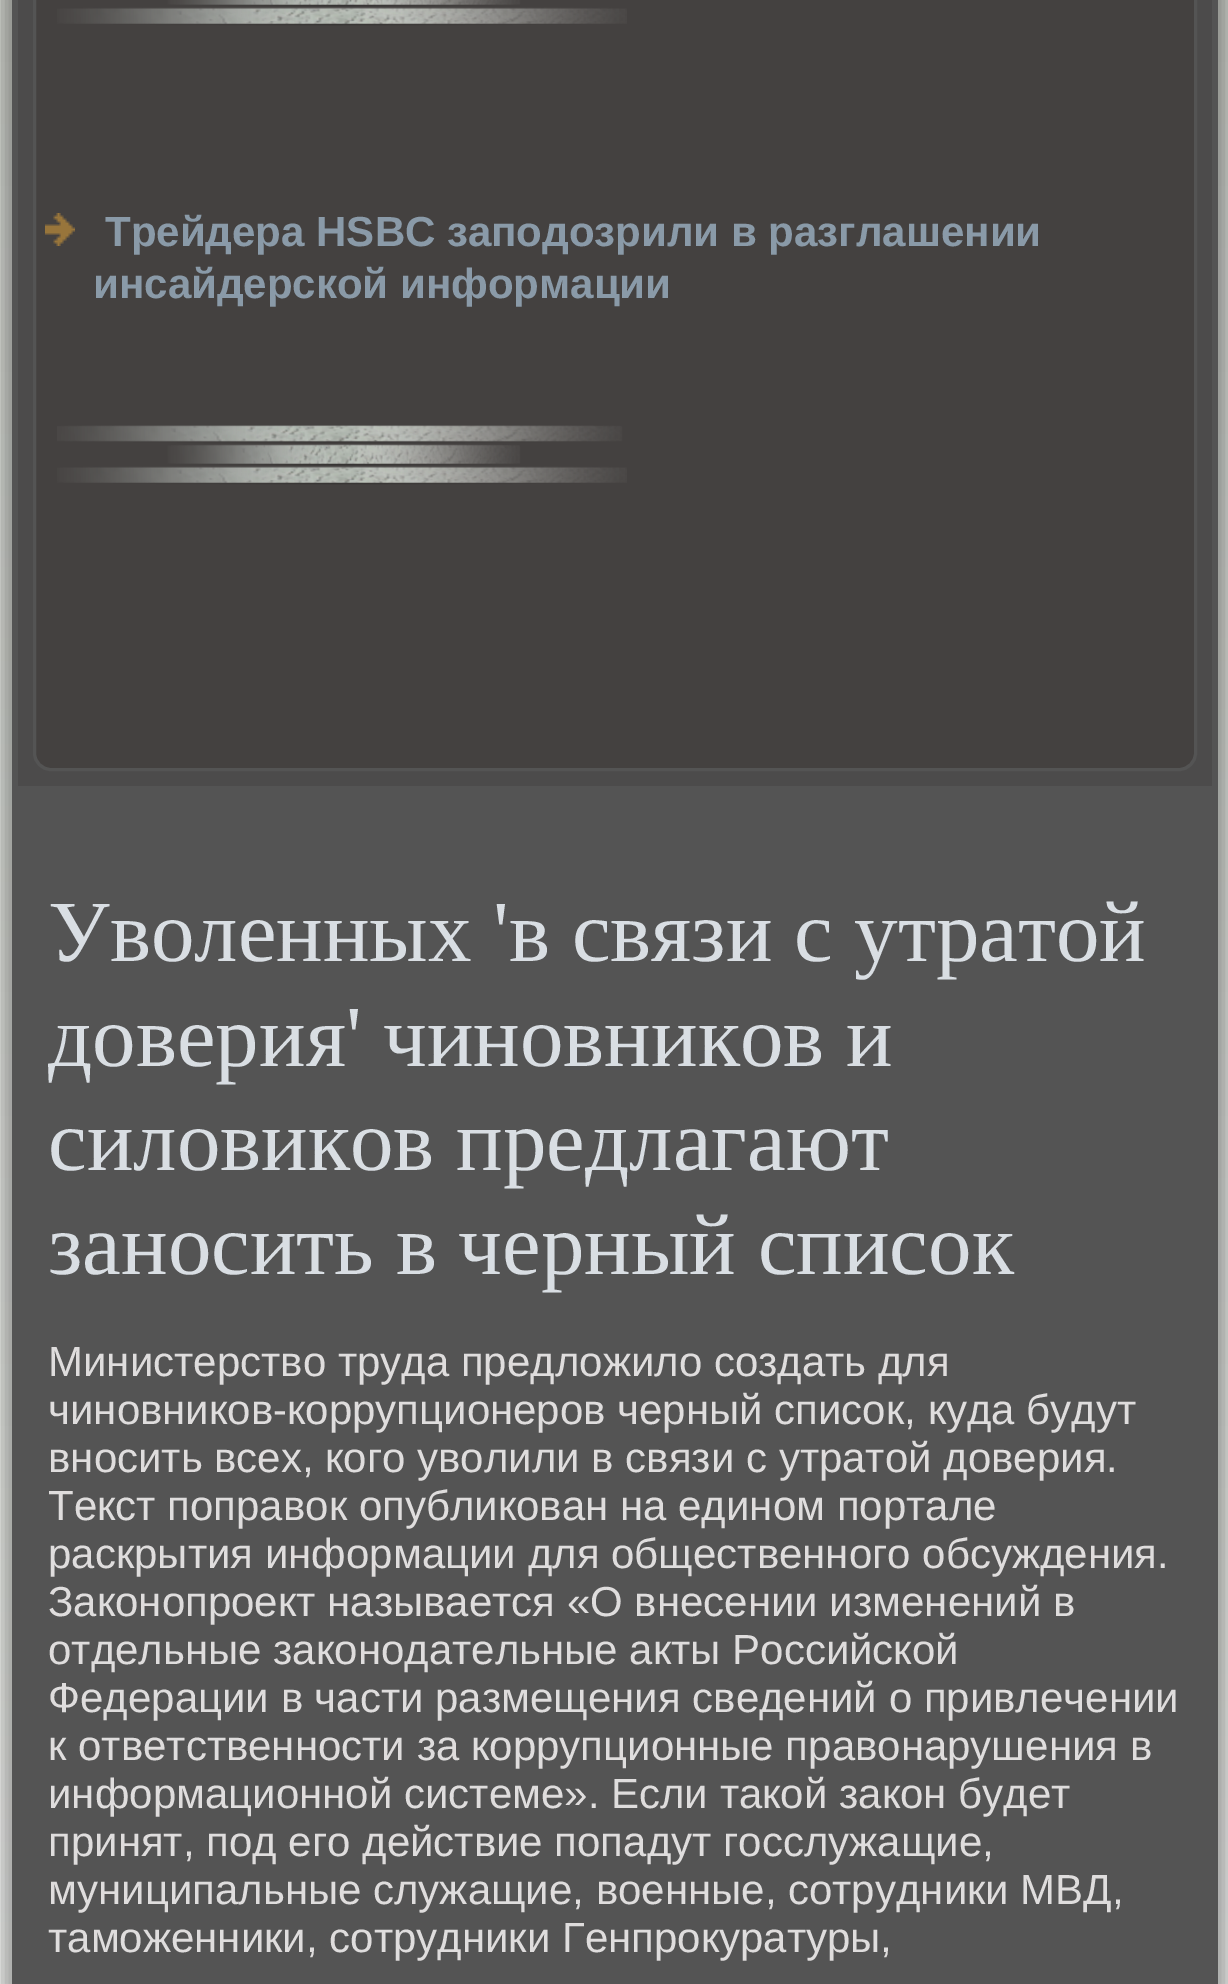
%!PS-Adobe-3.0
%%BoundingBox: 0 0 1228 1984
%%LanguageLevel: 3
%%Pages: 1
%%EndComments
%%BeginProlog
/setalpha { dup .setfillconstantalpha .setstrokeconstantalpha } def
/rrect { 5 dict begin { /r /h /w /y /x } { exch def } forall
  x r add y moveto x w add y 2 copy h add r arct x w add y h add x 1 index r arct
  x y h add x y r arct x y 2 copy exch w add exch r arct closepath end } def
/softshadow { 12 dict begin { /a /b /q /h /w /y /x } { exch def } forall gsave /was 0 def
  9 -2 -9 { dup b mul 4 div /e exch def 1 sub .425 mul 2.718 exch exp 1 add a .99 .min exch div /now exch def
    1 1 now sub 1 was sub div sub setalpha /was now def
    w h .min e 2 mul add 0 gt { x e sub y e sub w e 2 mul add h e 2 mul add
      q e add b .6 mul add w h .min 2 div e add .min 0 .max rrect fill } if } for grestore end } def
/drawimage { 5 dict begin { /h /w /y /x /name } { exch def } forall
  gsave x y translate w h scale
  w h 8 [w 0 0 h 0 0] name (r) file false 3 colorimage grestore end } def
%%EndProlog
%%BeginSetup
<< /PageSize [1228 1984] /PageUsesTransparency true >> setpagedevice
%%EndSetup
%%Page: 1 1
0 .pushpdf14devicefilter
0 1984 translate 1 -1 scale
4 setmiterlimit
1 setgray
0 0 1228 1984 rectfill
gsave newpath 0 0 moveto 1228 0 lineto 1228 1984 lineto 0 1984 lineto closepath clip newpath
<< /ShadingType 2 /ColorSpace /DeviceRGB /Coords [615 0 615 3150] /Extend [true true] /Function << /FunctionType 2 /Domain [0 1] /C0 [0.8 0.812 0.788] /C1 [1 1 1] /N 1 >> >> shfill grestore
0 setgray
3 -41 1224 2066 18 7.5 0.3 softshadow
0.329 setgray
12 0 1206 1984 rectfill
0.298 0.294 0.294 setrgbcolor
18 0 1194 786 rectfill
0.267 0.255 0.251 setrgbcolor
34.5 -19.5 1161 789 16.5 rrect gsave fill grestore
0.329 setgray
3 setlinewidth
stroke
(images/1.raw) 57 0 570 26 drawimage
(images/2.raw) 45 213 30 33 drawimage
(images/3.raw) 57 425 570 60 drawimage
/LiberationSans-Bold [42 0 0 -42 0 0] selectfont
0.541 0.604 0.659 setrgbcolor
105 246 moveto (Трейдера HSBC заподозрили в разглашении) show
93 298 moveto (инсайдерской информации) show
/LiberationSerif-Regular [87 0 0 -87 0 0] selectfont
0.851 0.871 0.89 setrgbcolor
48 961 moveto (Уволенных 'в связи с утратой) show
48 1066 moveto (доверия' чиновников и) show
48 1170 moveto (силовиков предлагают) show
48 1274 moveto (заносить в черный список) show
/LiberationSans-Regular [42 0 0 -42 0 0] selectfont
0.875 0.867 0.867 setrgbcolor
48 1376 moveto (Министерство труда предложило создать для) show
48 1424 moveto (чиновников-коррупционеров черный список, куда будут) show
48 1472 moveto (вносить всех, кого уволили в связи с утратой доверия.) show
48 1520 moveto (Текст поправок опубликован на едином портале) show
48 1568 moveto (раскрытия информации для общественного обсуждения.) show
48 1616 moveto (Законопроект называется «О внесении изменений в) show
48 1664 moveto (отдельные законодательные акты Российской) show
48 1712 moveto (Федерации в части размещения сведений о привлечении) show
48 1760 moveto (к ответственности за коррупционные правонарушения в) show
48 1808 moveto (информационной системе». Если такой закон будет) show
48 1856 moveto (принят, под его действие попадут госслужащие,) show
48 1904 moveto (муниципальные служащие, военные, сотрудники МВД,) show
48 1952 moveto (таможенники, сотрудники Генпрокуратуры,) show
.poppdf14devicefilter showpage
%%EOF
